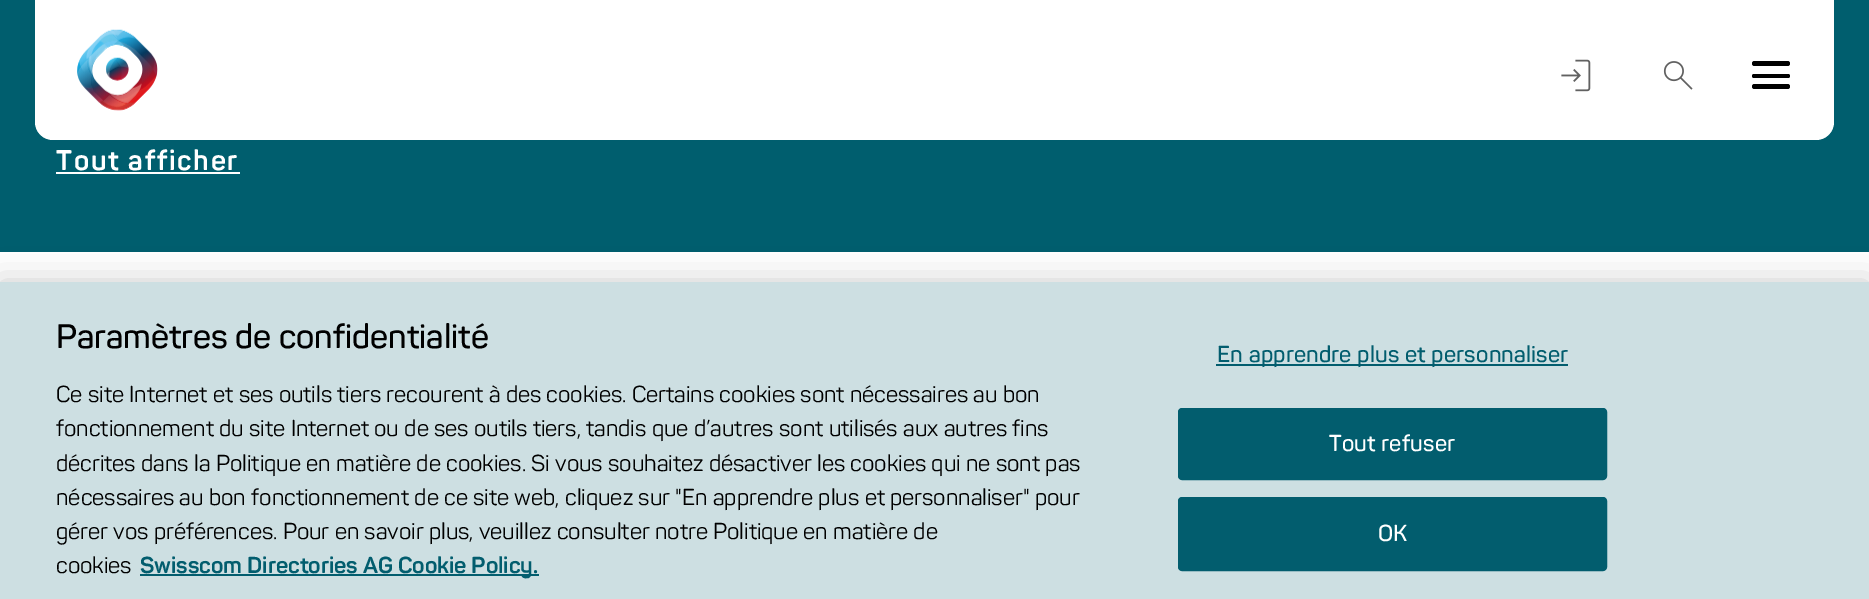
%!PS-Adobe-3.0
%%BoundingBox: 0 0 1869 599
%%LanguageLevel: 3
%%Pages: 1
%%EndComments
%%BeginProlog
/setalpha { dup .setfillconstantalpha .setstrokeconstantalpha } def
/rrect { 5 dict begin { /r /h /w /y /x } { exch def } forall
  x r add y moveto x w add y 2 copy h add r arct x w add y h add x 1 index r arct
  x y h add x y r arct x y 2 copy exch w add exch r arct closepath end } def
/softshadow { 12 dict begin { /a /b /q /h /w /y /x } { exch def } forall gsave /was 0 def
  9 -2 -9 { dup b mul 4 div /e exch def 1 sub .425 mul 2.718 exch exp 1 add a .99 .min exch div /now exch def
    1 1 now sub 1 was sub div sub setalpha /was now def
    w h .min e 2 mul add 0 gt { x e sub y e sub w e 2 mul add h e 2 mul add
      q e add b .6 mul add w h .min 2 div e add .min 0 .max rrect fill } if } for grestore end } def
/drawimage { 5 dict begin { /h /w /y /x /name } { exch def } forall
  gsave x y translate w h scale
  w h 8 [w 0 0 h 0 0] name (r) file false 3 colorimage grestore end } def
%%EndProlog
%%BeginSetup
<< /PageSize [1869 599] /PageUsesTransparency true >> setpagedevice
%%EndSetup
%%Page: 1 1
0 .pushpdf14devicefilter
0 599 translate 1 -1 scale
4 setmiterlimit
1 setgray
0 0 1869 599 rectfill
0 0.369 0.431 setrgbcolor
0 0 1869 252 rectfill
1 setgray
newpath 35 0 moveto 1834 0 lineto 1834 122 lineto 1834 132 1826 140 1816 140 curveto 53 140 lineto 43 140 35 132 35 122 curveto closepath fill
(images/1.raw) 77 29 81 82 drawimage
(images/2.raw) 1561 59 30 33 drawimage
(images/3.raw) 1663 61 30 29 drawimage
0 setgray
1752 74 38 4 2 rrect fill
1752 61 38 5 2.5 rrect fill
1752 84 38 5 2.5 rrect fill
1 setgray
56 172 184 2 rectfill
0 setgray
0 282 1869 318 0 16 0.2 softshadow
0.804 0.875 0.886 setrgbcolor
0 282 1869 317 rectfill
0.008 0.365 0.431 setrgbcolor
140 574 399 2 rectfill
1216 364 352 2 rectfill
1179 409 427 70 3 rrect gsave fill grestore
2 setlinewidth
stroke
1179 498 427 72 3 rrect gsave fill grestore
stroke
/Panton-Bold [28 0 0 -28 0 0] selectfont
1 setgray
56 170 moveto 1.75 0 (Tout afficher) ashow
/Panton-SemiBold [33.6 0 0 -33.6 0 0] selectfont
0 setgray
56 348 moveto (Paramètres de confidentialité) show
/Panton-Regular [22.75 0 0 -22.75 0 0] selectfont
56 402 moveto (Ce site Internet et ses outils tiers recourent à des cookies. Certains cookies sont nécessaires au bon) show
56 436 moveto (fonctionnement du site Internet ou de ses outils tiers, tandis que d’autres sont utilisés aux autres fins) show
56 471 moveto (décrites dans la Politique en matière de cookies. Si vous souhaitez désactiver les cookies qui ne sont pas) show
56 505 moveto (nécessaires au bon fonctionnement de ce site web, cliquez sur "En apprendre plus et personnaliser" pour) show
56 539 moveto (gérer vos préférences. Pour en savoir plus, veuillez consulter notre Politique en matière de) show
56 573 moveto (cookies) show
/Panton-Bold [22.75 0 0 -22.75 0 0] selectfont
0.008 0.365 0.431 setrgbcolor
140 573 moveto (Swisscom Directories AG Cookie Policy.) show
/Panton-SemiBold [22.75 0 0 -22.75 0 0] selectfont
1217 362 moveto 0.25 0 (En apprendre plus et personnaliser) ashow
1 setgray
1329 451 moveto 0.25 0 (Tout refuser) ashow
1378 541 moveto 0.25 0 (OK) ashow
.poppdf14devicefilter showpage
%%EOF
